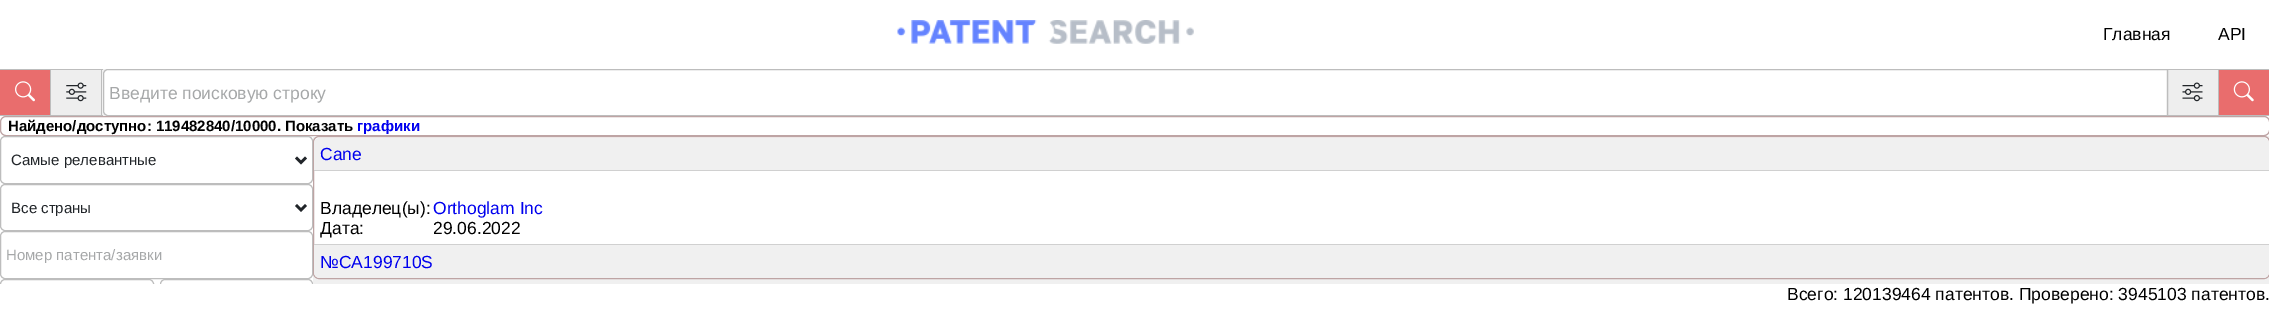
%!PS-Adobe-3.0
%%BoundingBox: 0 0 2269 313
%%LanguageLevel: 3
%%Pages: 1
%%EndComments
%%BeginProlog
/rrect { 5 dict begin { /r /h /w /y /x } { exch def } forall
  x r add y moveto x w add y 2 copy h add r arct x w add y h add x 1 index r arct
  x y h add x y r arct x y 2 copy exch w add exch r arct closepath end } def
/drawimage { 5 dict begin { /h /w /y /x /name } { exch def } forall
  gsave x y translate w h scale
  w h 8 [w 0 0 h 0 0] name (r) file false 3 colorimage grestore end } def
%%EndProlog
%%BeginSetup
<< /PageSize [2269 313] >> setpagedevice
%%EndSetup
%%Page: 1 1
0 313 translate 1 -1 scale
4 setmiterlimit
1 setgray
0 0 2269 313 rectfill
(images/1.raw) 897 20 297 24 drawimage
0.941 setgray
102 69 2065 47 rectfill
0.914 0.427 0.427 setrgbcolor
0 70 50 45 rectfill
0.741 setgray
0 69 103 1 rectfill
50 69 1 47 rectfill
0 115 51 1 rectfill
(images/2.raw) 15 81 20 21 drawimage
0.933 setgray
51 70 50 45 rectfill
0.741 setgray
101 69 1 47 rectfill
51 115 52 1 rectfill
(images/3.raw) 66 82 21 20 drawimage
0.933 setgray
2168 70 50 45 rectfill
0.741 setgray
2168 69 101 1 rectfill
2218 69 1 47 rectfill
2168 115 101 1 rectfill
(images/4.raw) 2182 82 21 20 drawimage
1 setgray
newpath 108 70 moveto 2166 70 lineto 2166 115 lineto 108 115 lineto 106 115 104 113 104 111 curveto 104 74 lineto 104 72 106 70 108 70 curveto closepath fill
0.741 setgray
newpath 108 69.5 moveto 2167.5 69.5 lineto 2167.5 115.5 lineto 108 115.5 lineto 105.5 115.5 103.5 113.5 103.5 111 curveto 103.5 74 lineto 103.5 71.5 105.5 69.5 108 69.5 curveto closepath stroke
0.914 0.427 0.427 setrgbcolor
2219 70 50 45 rectfill
(images/5.raw) 2233 81 21 21 drawimage
0.745 0.643 0.643 setrgbcolor
0.5 116.5 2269 19 5.5 rrect stroke
0.741 setgray
0.5 136.5 312 47 4.5 rrect stroke
0.129 0.145 0.161 setrgbcolor
2.5 setlinewidth
newpath 296 157.5 moveto 301 162.5 lineto 306 157.5 lineto stroke
0.741 setgray
1 setlinewidth
0.5 184.5 312 46 4.5 rrect stroke
0.129 0.145 0.161 setrgbcolor
2.5 setlinewidth
newpath 296 205 moveto 301 210 lineto 306 205 lineto stroke
0.741 setgray
1 setlinewidth
0.5 231.5 312 47 4.5 rrect stroke
gsave
0 136 313 148 rectclip
0.5 279.5 153 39 4.5 rrect stroke
160.5 279.5 152 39 4.5 rrect stroke
grestore
0.941 setgray
313 136 1956 148 rectfill
1 setgray
313.5 136.5 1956 142 5.5 rrect gsave fill grestore
0.745 0.643 0.643 setrgbcolor
stroke
0.941 setgray
newpath 320 138 moveto 2263 138 lineto 2266.5 138 2269 140.5 2269 144 curveto 2269 171 lineto 314 171 lineto 314 144 lineto 314 140.5 316.5 138 320 138 curveto closepath fill
0.816 setgray
314 170 1955 1 rectfill
0.941 setgray
newpath 314 244 moveto 2269 244 lineto 2269 272 lineto 2269 275.5 2266.5 278 2263 278 curveto 320 278 lineto 316.5 278 314 275.5 314 272 curveto closepath fill
0.816 setgray
314 244 1955 1 rectfill
/LiberationSans-Regular [17.5 0 0 -17.5 0 0] selectfont
0 setgray
2103 40 moveto (Главная) show
2218 40 moveto (API) show
0.651 0.659 0.663 setrgbcolor
109 99 moveto (Введите поисковую строку) show
/LiberationSans-Bold [15 0 0 -15 0 0] selectfont
0 setgray
8 131 moveto (Найдено/доступно: 119482840/10000. Показать) show
0 0 0.933 setrgbcolor
357 131 moveto (графики) show
/LiberationSans-Regular [15 0 0 -15 0 0] selectfont
0.129 0.145 0.161 setrgbcolor
11 165 moveto (Самые релевантные) show
11 213 moveto (Все страны) show
0.651 0.659 0.663 setrgbcolor
6 260 moveto (Номер патента/заявки) show
/LiberationSans-Regular [17.5 0 0 -17.5 0 0] selectfont
0 0 0.933 setrgbcolor
320 160 moveto (Cane) show
0 setgray
320 214 moveto (Владелец\(ы\):) show
0 0 0.933 setrgbcolor
433 214 moveto (Orthoglam Inc) show
0 setgray
320 234 moveto (Дата:) show
433 234 moveto (29.06.2022) show
0 0 0.933 setrgbcolor
320 268 moveto (№CA199710S) show
0 setgray
1787 300 moveto (Всего: 120139464 патентов. Проверено: 3945103 патентов.) show
showpage
%%EOF
